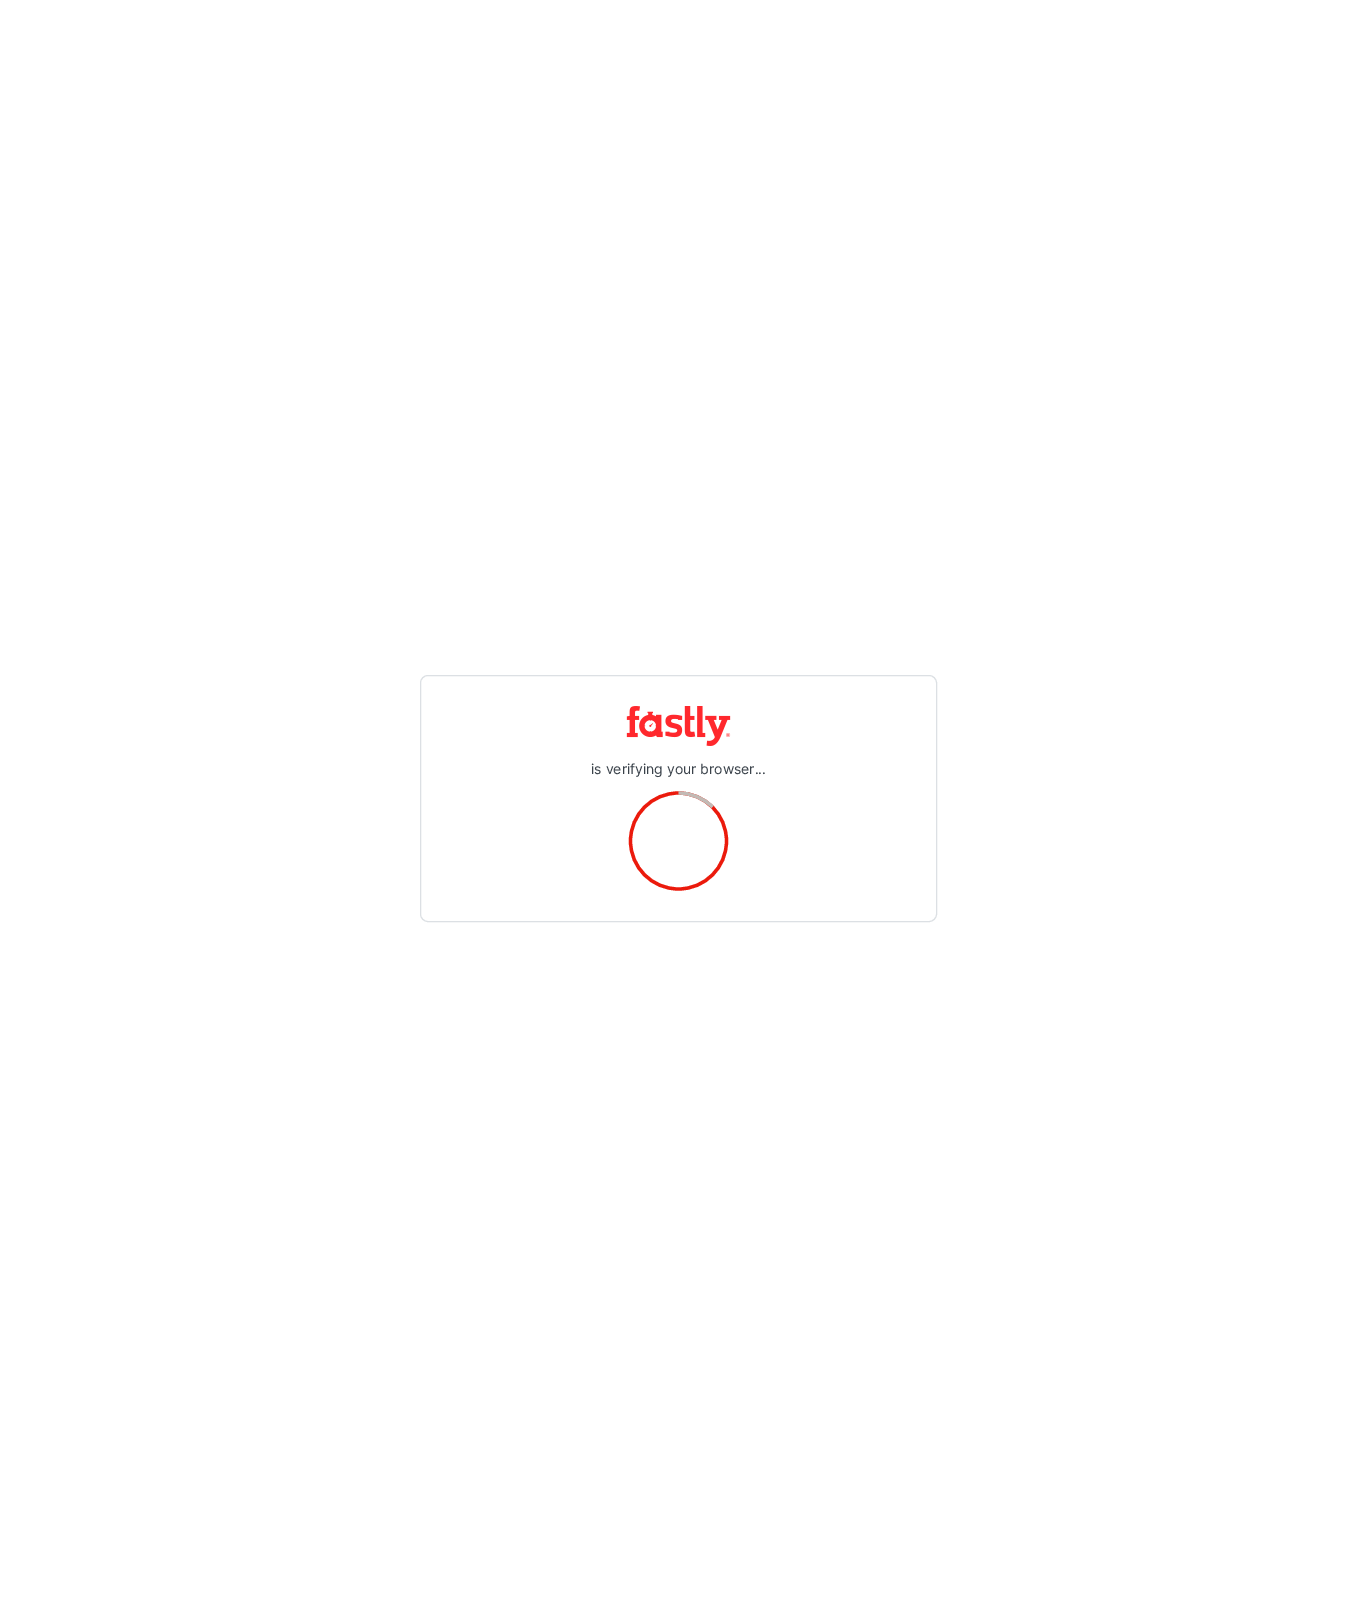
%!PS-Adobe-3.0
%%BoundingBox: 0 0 1357 1597
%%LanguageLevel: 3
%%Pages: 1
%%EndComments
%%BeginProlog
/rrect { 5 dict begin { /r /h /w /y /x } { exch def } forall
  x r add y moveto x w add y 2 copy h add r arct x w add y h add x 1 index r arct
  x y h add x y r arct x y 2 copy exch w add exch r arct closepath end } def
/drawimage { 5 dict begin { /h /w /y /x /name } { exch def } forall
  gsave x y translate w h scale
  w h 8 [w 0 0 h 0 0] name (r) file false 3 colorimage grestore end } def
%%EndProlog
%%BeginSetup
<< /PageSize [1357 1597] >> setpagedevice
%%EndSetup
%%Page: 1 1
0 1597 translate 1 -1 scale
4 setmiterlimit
1 setgray
0 0 1357 1597 rectfill
0.863 0.878 0.894 setrgbcolor
420.5 675.5 516 246 7.5 rrect stroke
(images/1.raw) 626 706 105 40 drawimage
0.922 0.102 0.047 setrgbcolor
3.3 setlinewidth
newpath 630.5 841 moveto 630.5 814.5 652 793 678.5 793 curveto 705 793 726.5 814.5 726.5 841 curveto 726.5 867.5 705 889 678.5 889 curveto 652 889 630.5 867.5 630.5 841 curveto closepath stroke
0.761 0.729 0.71 setrgbcolor
newpath 712.5 807 moveto 703.5 798 691 793 678.5 793 curveto stroke
/Inter-Regular [14 0 0 -14 0 0] selectfont
0.227 0.259 0.29 setrgbcolor
591 774 moveto (is verifying your browser...) show
showpage
%%EOF
